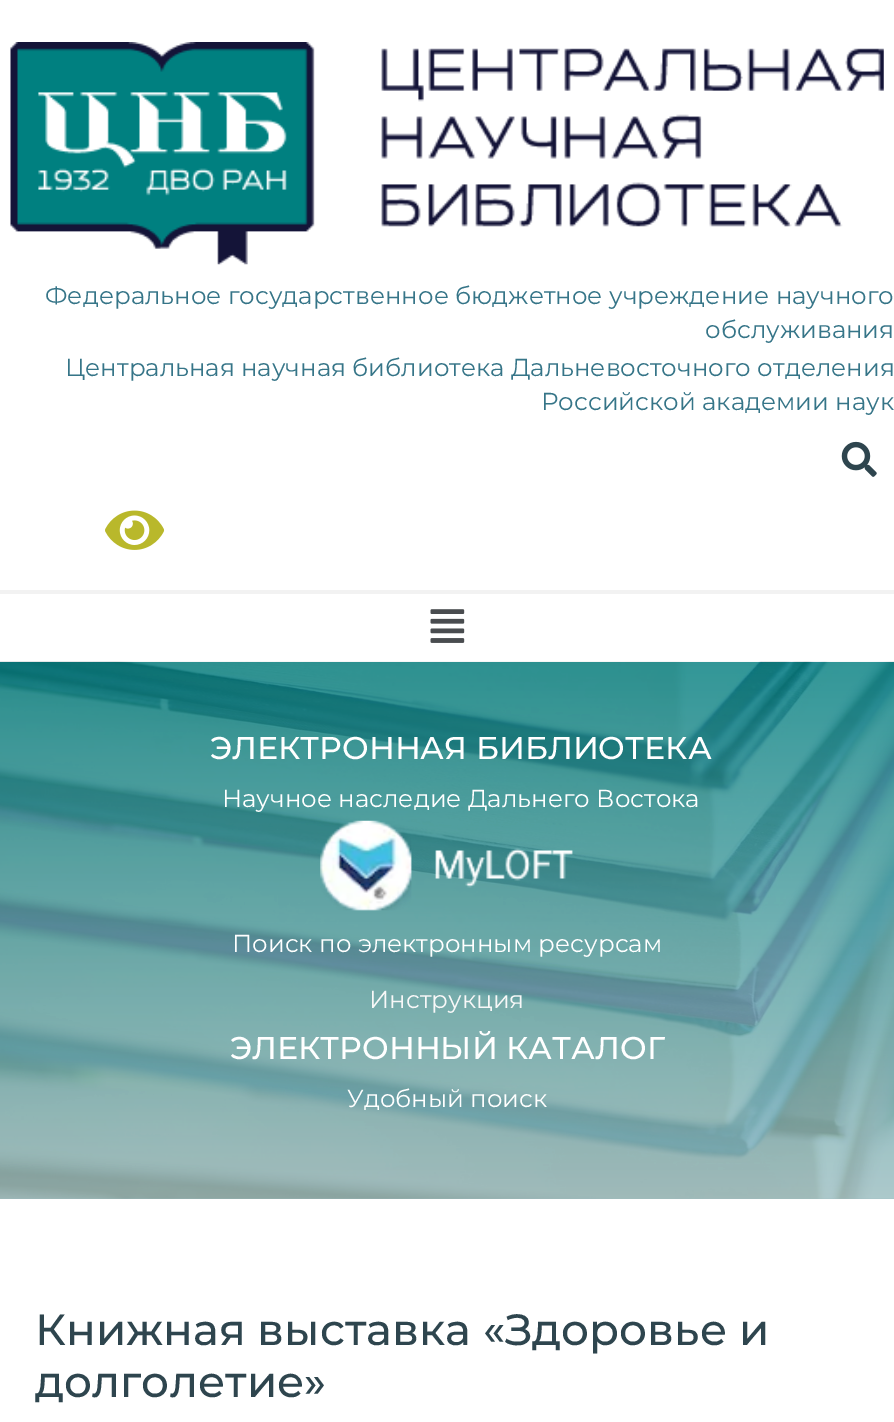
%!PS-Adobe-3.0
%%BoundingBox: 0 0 894 1422
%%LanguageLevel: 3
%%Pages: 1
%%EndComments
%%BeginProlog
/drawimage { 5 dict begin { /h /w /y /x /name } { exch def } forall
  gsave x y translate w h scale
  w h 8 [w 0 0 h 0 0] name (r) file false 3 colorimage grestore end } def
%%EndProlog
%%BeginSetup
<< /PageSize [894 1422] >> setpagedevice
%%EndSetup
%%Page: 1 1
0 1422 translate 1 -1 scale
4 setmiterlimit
1 setgray
0 0 894 1422 rectfill
(images/1.raw) 10 42 874 223 drawimage
(images/2.raw) 841 441 36 36 drawimage
(images/3.raw) 105 510 60 40 drawimage
0.949 setgray
0 590 894 4 rectfill
(images/4.raw) 430 609 35 34 drawimage
gsave newpath 0 662 moveto 894 662 lineto 894 1199 lineto 0 1199 lineto closepath clip newpath
<< /ShadingType 2 /ColorSpace /DeviceRGB /Coords [447 662 447 1199] /Extend [true true] /Function << /FunctionType 2 /Domain [0 1] /C0 [0 0.502 0.502] /C1 [0.62 0.757 0.765] /N 1 >> >> shfill grestore
(images/5.raw) 0 661 894 538 drawimage
(images/6.raw) 320 820 253 91 drawimage
/Montserrat-Regular [24.5 0 0 -24.5 0 0] selectfont
0.212 0.459 0.533 setrgbcolor
45 304 moveto (Федеральное государственное бюджетное учреждение научного) show
705 338 moveto (обслуживания) show
65 376 moveto (Центральная научная библиотека Дальневосточного отделения) show
541 410 moveto (Российской академии наук) show
/Montserrat-Medium [31.5 0 0 -31.5 0 0] selectfont
1 setgray
210 759 moveto (ЭЛЕКТРОННАЯ БИБЛИОТЕКА) show
/Montserrat-Regular [24.5 0 0 -24.5 0 0] selectfont
222 807 moveto (Научное наследие Дальнего Востока) show
232 952 moveto (Поиск по электронным ресурсам) show
0.973 setgray
369 1008 moveto (Инструкция) show
/Montserrat-Medium [31.5 0 0 -31.5 0 0] selectfont
1 setgray
230 1059 moveto (ЭЛЕКТРОННЫЙ КАТАЛОГ) show
/Montserrat-Regular [24.5 0 0 -24.5 0 0] selectfont
347 1107 moveto (Удобный поиск) show
/Montserrat-Medium [43.75 0 0 -43.75 0 0] selectfont
0.18 0.271 0.306 setrgbcolor
35 1345 moveto (Книжная выставка «Здоровье и) show
35 1397 moveto (долголетие») show
showpage
%%EOF
